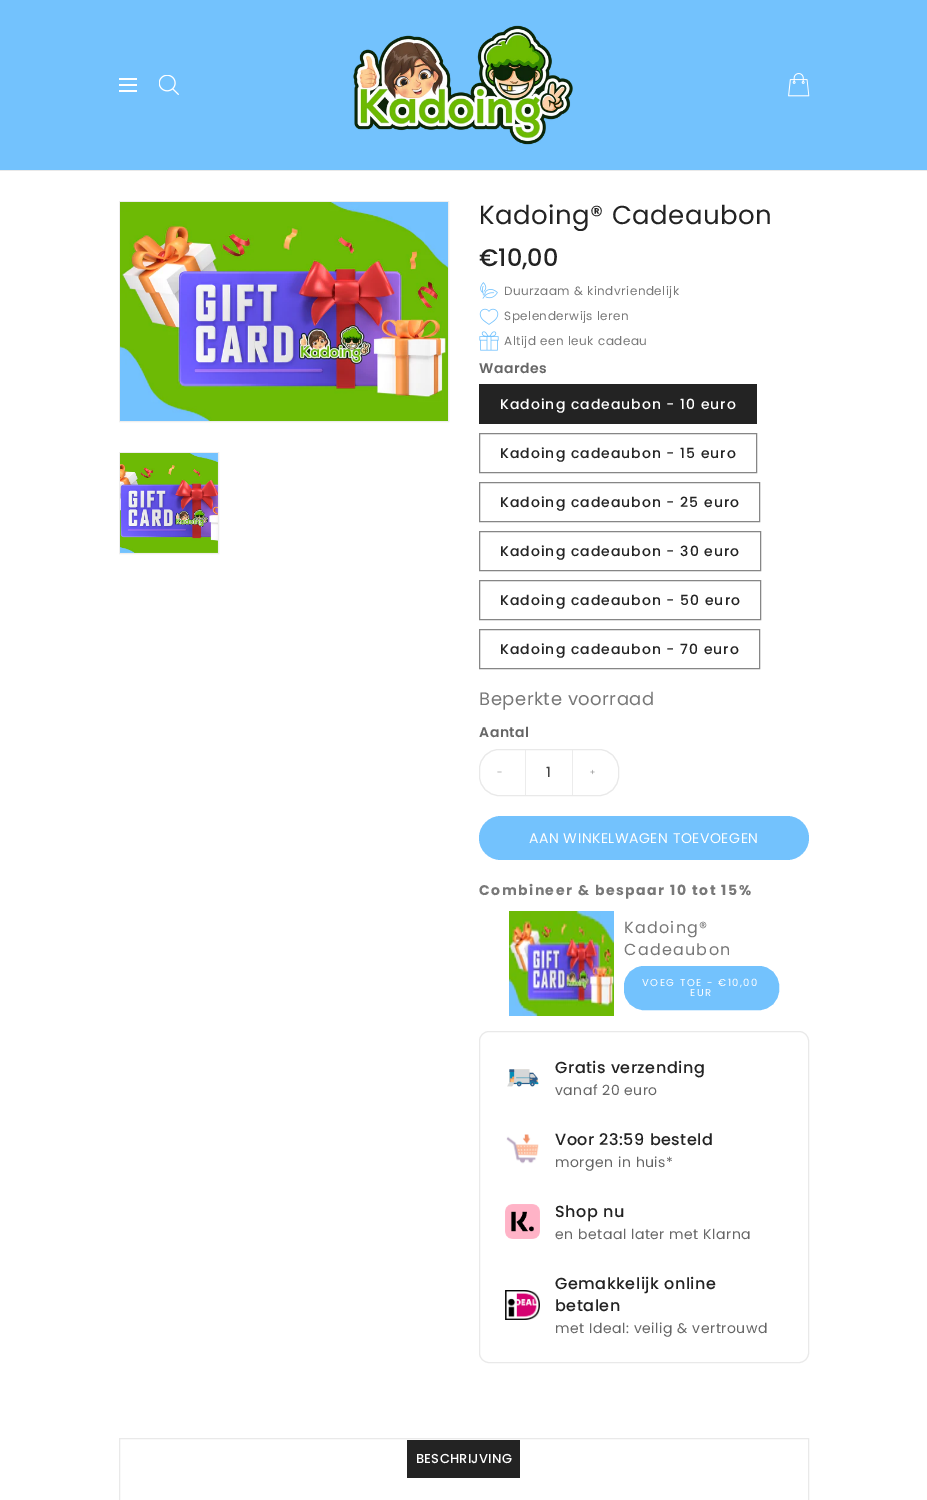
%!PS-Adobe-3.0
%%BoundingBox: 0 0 927 1500
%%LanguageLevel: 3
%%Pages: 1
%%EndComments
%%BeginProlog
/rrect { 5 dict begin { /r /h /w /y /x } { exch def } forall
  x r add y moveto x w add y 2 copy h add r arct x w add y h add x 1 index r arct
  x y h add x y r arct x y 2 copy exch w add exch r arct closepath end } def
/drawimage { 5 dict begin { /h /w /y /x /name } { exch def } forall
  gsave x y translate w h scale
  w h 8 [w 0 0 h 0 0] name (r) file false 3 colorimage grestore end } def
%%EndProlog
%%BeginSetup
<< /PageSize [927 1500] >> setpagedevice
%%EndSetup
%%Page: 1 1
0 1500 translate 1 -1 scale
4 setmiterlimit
1 setgray
0 0 927 1500 rectfill
0.451 0.761 0.992 setrgbcolor
0 0 927 170 rectfill
0.914 setgray
0 170 927 1 rectfill
1 setgray
119 78 18 2 rectfill
119 84 18 2 rectfill
119 90 18 2 rectfill
(images/1.raw) 159 75 20 20 drawimage
(images/2.raw) 353 25 220 120 drawimage
(images/3.raw) 788 73 22 24 drawimage
0.933 setgray
119.5 201.5 329 220 rectstroke
(images/4.raw) 120 202 328 219 drawimage
119.5 452.5 99 101 rectstroke
(images/5.raw) 120 453 98 100 drawimage
(images/6.raw) 480 282 18 17 drawimage
(images/7.raw) 479 308 20 17 drawimage
(images/8.raw) 479 331 20 20 drawimage
0.137 setgray
479 384 278 40 rectfill
0.525 setgray
479.5 433.5 277 39 rectstroke
479.5 482.5 280 39 rectstroke
479.5 531.5 281 39 rectstroke
479.5 580.5 281 39 rectstroke
479.5 629.5 280 39 rectstroke
0.914 setgray
479.5 749.5 139 46 19.5 rrect stroke
(images/9.raw) 497 771 5 2 drawimage
0.925 setgray
572 750 1 45 rectfill
525 750 1 45 rectfill
(images/10.raw) 590 769 5 6 drawimage
0.451 0.761 0.992 setrgbcolor
479 816 330 44 22 rrect fill
(images/11.raw) 509 911 105 105 drawimage
625 967 153 42 19 rrect gsave fill grestore
2 setlinewidth
stroke
0.914 setgray
1 setlinewidth
479.5 1031.5 329 331 9.5 rrect stroke
(images/12.raw) 507 1069 32 18 drawimage
(images/13.raw) 506 1134 33 30 drawimage
(images/14.raw) 505 1204 35 35 drawimage
(images/15.raw) 505 1290 35 30 drawimage
119.5 1438.5 689 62 rectstroke
0.137 setgray
407 1440 113 38 rectfill
/Poppins-Regular [26 0 0 -26 0 0] selectfont
479 224 moveto 0.5 0 (Kadoing® Cadeaubon) ashow
/Poppins-Medium [24 0 0 -24 0 0] selectfont
479 266 moveto (€10,00) show
/Poppins-Regular [12 0 0 -12 0 0] selectfont
0.471 setgray
504 295 moveto 0.5 0 (Duurzaam & kindvriendelijk) ashow
504 320 moveto 0.5 0 (Spelenderwijs leren) ashow
504 345 moveto 0.5 0 (Altijd een leuk cadeau) ashow
/Poppins-SemiBold [14 0 0 -14 0 0] selectfont
0.4 setgray
479 373 moveto 0.5 0 (Waardes) ashow
/Poppins-Medium [14 0 0 -14 0 0] selectfont
1 setgray
500 409 moveto 1 0 (Kadoing cadeaubon - 10 euro) ashow
0.137 setgray
500 458 moveto 1 0 (Kadoing cadeaubon - 15 euro) ashow
500 507 moveto 1 0 (Kadoing cadeaubon - 25 euro) ashow
500 556 moveto 1 0 (Kadoing cadeaubon - 30 euro) ashow
500 605 moveto 1 0 (Kadoing cadeaubon - 50 euro) ashow
500 654 moveto 1 0 (Kadoing cadeaubon - 70 euro) ashow
/Poppins-Regular [18 0 0 -18 0 0] selectfont
0.471 setgray
479 705 moveto 0.5 0 (Beperkte voorraad) ashow
/Poppins-SemiBold [14 0 0 -14 0 0] selectfont
0.4 setgray
479 737 moveto 0.5 0 (Aantal) ashow
/Poppins-Medium [14 0 0 -14 0 0] selectfont
0.267 setgray
546 777 moveto (1) show
/Poppins-Regular [14 0 0 -14 0 0] selectfont
1 setgray
529 843 moveto 0.5 0 (AAN WINKELWAGEN TOEVOEGEN) ashow
/Poppins-Bold [14 0 0 -14 0 0] selectfont
0.471 setgray
479 895 moveto 1.5 0 (Combineer & bespaar 10 tot 15%) ashow
/Poppins-Regular [16 0 0 -16 0 0] selectfont
624 933 moveto 1.25 0 (Kadoing®) ashow
624 955 moveto 1.25 0 (Cadeaubon) ashow
/Poppins-Regular [10 0 0 -10 0 0] selectfont
1 setgray
642 986 moveto 1.5 0 (VOEG TOE - €10,00) ashow
690 996 moveto 1.5 0 (EUR) ashow
/Poppins-Medium [16 0 0 -16 0 0] selectfont
0.137 setgray
555 1073 moveto 0.5 0 (Gratis verzending) ashow
/Poppins-Regular [14 0 0 -14 0 0] selectfont
0.4 setgray
555 1095 moveto 0.5 0 (vanaf 20 euro) ashow
/Poppins-Medium [16 0 0 -16 0 0] selectfont
0.137 setgray
555 1145 moveto 0.5 0 (Voor 23:59 besteld) ashow
/Poppins-Regular [14 0 0 -14 0 0] selectfont
0.4 setgray
555 1167 moveto 0.5 0 (morgen in huis*) ashow
/Poppins-Medium [16 0 0 -16 0 0] selectfont
0.137 setgray
555 1217 moveto 0.5 0 (Shop nu) ashow
/Poppins-Regular [14 0 0 -14 0 0] selectfont
0.4 setgray
555 1239 moveto 0.5 0 (en betaal later met Klarna) ashow
/Poppins-Medium [16 0 0 -16 0 0] selectfont
0.137 setgray
555 1289 moveto 0.5 0 (Gemakkelijk online) ashow
555 1311 moveto 0.5 0 (betalen) ashow
/Poppins-Regular [14 0 0 -14 0 0] selectfont
0.4 setgray
555 1333 moveto 0.5 0 (met Ideal: veilig & vertrouwd) ashow
/Poppins-Medium [13 0 0 -13 0 0] selectfont
1 setgray
416 1463 moveto 0.25 0 (BESCHRIJVING) ashow
showpage
%%EOF
